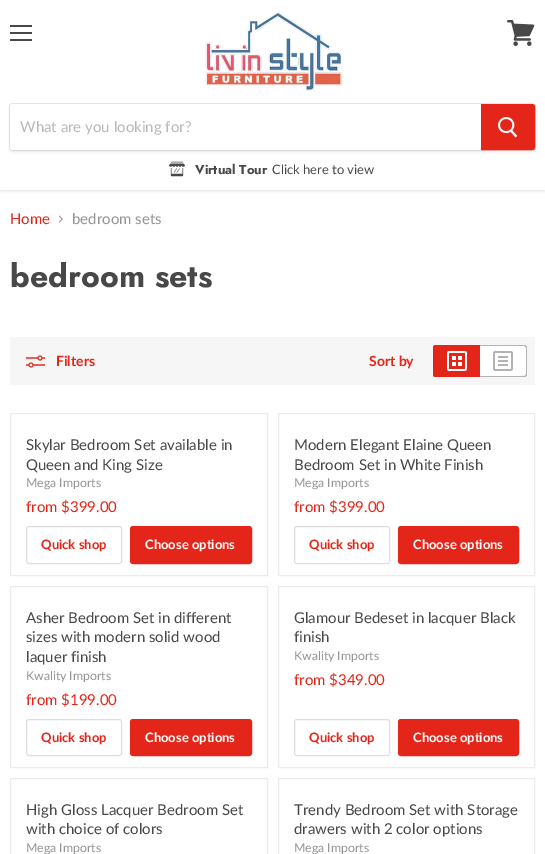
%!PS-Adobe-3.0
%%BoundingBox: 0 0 545 854
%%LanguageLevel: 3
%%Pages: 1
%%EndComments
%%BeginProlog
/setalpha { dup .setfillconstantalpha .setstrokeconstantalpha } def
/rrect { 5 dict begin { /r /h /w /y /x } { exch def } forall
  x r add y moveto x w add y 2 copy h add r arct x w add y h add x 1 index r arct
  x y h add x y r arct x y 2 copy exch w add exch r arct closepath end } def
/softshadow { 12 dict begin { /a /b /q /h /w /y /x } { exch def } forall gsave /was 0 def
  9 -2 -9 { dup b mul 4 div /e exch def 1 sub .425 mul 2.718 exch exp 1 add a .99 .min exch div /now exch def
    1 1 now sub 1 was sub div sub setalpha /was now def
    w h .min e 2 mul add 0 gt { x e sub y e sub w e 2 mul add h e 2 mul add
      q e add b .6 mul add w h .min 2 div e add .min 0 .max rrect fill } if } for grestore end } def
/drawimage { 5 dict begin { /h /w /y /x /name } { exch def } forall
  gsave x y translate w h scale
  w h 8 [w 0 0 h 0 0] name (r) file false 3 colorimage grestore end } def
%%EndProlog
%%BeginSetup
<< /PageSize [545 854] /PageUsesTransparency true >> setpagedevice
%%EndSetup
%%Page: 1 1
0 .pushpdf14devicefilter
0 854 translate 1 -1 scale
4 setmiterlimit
1 setgray
0 0 545 854 rectfill
gsave
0 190 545 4 rectclip
0.502 setgray
0 1 545 190 0 2 0.25 softshadow
grestore
0.282 setgray
10 25 22 2 rectfill
10 32 22 2 rectfill
10 39 22 2 rectfill
(images/1.raw) 507 20 28 26 drawimage
(images/2.raw) 205 11 137 80 drawimage
0.502 setgray
9 105 527 48 4 1.5 0.11 softshadow
0.2 setalpha
9.5 103.5 526 47 3.5 rrect stroke
1 setalpha
1 setgray
newpath 13 104 moveto 481 104 lineto 481 150 lineto 13 150 lineto 11.5 150 10 148.5 10 147 curveto 10 107 lineto 10 105.5 11.5 104 13 104 curveto closepath fill
0.89 0.149 0.098 setrgbcolor
newpath 481.5 104.5 moveto 532 104.5 lineto 533.5 104.5 534.5 105.5 534.5 107 curveto 534.5 147 lineto 534.5 148.5 533.5 149.5 532 149.5 curveto 481.5 149.5 lineto closepath gsave fill grestore
stroke
(images/3.raw) 498 117 20 21 drawimage
(images/4.raw) 169 161 16 16 drawimage
(images/5.raw) 59 215 4 8 drawimage
0.965 setgray
10 337 525 48 rectfill
(images/6.raw) 26 355 19 13 drawimage
0.89 0.149 0.098 setrgbcolor
newpath 436 345 moveto 480 345 lineto 480 377 lineto 436 377 lineto 434.5 377 433 375.5 433 374 curveto 433 348 lineto 433 346.5 434.5 345 436 345 curveto closepath fill
newpath 436 345 moveto 480 345 lineto 480 377 lineto 436 377 lineto 434 377 433 376 433 374 curveto 433 348 lineto 433 346 434 345 436 345 curveto closepath 436 346 moveto 480 346 lineto 480 376 lineto 436 376 lineto 435 376 434 375 434 374 curveto 434 348 lineto 434 347 435 346 436 346 curveto closepath eofill
(images/7.raw) 447 351 20 20 drawimage
1 setgray
newpath 480 345 moveto 524 345 lineto 525.5 345 527 346.5 527 348 curveto 527 374 lineto 527 375.5 525.5 377 524 377 curveto 480 377 lineto closepath fill
0.702 setgray
newpath 480 345 moveto 524 345 lineto 526 345 527 346 527 348 curveto 527 374 lineto 527 376 526 377 524 377 curveto 480 377 lineto closepath 480 346 moveto 524 346 lineto 525 346 526 347 526 348 curveto 526 374 lineto 526 375 525 376 524 376 curveto 480 376 lineto closepath eofill
(images/8.raw) 493 351 20 20 drawimage
0.922 setgray
10.5 413.5 257 162 rectstroke
0.867 setgray
26.5 526.5 95 37 2.5 rrect stroke
0.89 0.149 0.098 setrgbcolor
130.5 526.5 121 37 2.5 rrect gsave fill grestore
stroke
0.922 setgray
278.5 413.5 256 162 rectstroke
0.867 setgray
294.5 526.5 95 37 2.5 rrect stroke
0.89 0.149 0.098 setrgbcolor
398.5 526.5 120 37 2.5 rrect gsave fill grestore
stroke
0.922 setgray
10.5 586.5 257 181 rectstroke
0.867 setgray
26.5 719.5 95 36 2.5 rrect stroke
0.89 0.149 0.098 setrgbcolor
130.5 719.5 121 36 2.5 rrect gsave fill grestore
stroke
0.922 setgray
278.5 586.5 256 181 rectstroke
0.867 setgray
294.5 719.5 95 36 2.5 rrect stroke
0.89 0.149 0.098 setrgbcolor
398.5 719.5 120 36 2.5 rrect gsave fill grestore
stroke
0.922 setgray
10.5 778.5 257 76 rectstroke
278.5 778.5 256 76 rectstroke
/Lato-Regular [15 0 0 -15 0 0] selectfont
0.722 setgray
20 132 moveto (What are you looking for?) show
/Jost-Bold [13 0 0 -13 0 0] selectfont
0.282 setgray
195 174 moveto (Virtual Tour) show
/Lato-Regular [13 0 0 -13 0 0] selectfont
272 174 moveto (Click here to view) show
/Lato-Regular [15 0 0 -15 0 0] selectfont
0.89 0.149 0.098 setrgbcolor
10 224 moveto (Home) show
0.58 setgray
72 224 moveto (bedroom sets) show
/Jost-Bold [32 0 0 -32 0 0] selectfont
0.282 setgray
10 287 moveto (bedroom sets) show
/Lato-Bold [14 0 0 -14 0 0] selectfont
0.89 0.149 0.098 setrgbcolor
56 366 moveto (Filters) show
369 366 moveto (Sort by) show
/Lato-Regular [15 0 0 -15 0 0] selectfont
0.282 setgray
26 450 moveto (Skylar Bedroom Set available in) show
26 470 moveto (Queen and King Size) show
/Lato-Regular [12.25 0 0 -12.25 0 0] selectfont
0.58 setgray
26 487 moveto (Mega Imports) show
/Lato-Regular [15 0 0 -15 0 0] selectfont
0.89 0.149 0.098 setrgbcolor
26 512 moveto (from $399.00) show
/Lato-Bold [13 0 0 -13 0 0] selectfont
41 549 moveto (Quick shop) show
1 setgray
145 549 moveto (Choose options) show
/Lato-Regular [15 0 0 -15 0 0] selectfont
0.282 setgray
294 450 moveto (Modern Elegant Elaine Queen) show
294 470 moveto (Bedroom Set in White Finish) show
/Lato-Regular [12.25 0 0 -12.25 0 0] selectfont
0.58 setgray
294 487 moveto (Mega Imports) show
/Lato-Regular [15 0 0 -15 0 0] selectfont
0.89 0.149 0.098 setrgbcolor
294 512 moveto (from $399.00) show
/Lato-Bold [13 0 0 -13 0 0] selectfont
309 549 moveto (Quick shop) show
1 setgray
413 549 moveto (Choose options) show
/Lato-Regular [15 0 0 -15 0 0] selectfont
0.282 setgray
26 623 moveto (Asher Bedroom Set in different) show
26 642 moveto (sizes with modern solid wood) show
26 662 moveto (laquer finish) show
/Lato-Regular [12.25 0 0 -12.25 0 0] selectfont
0.58 setgray
26 680 moveto (Kwality Imports) show
/Lato-Regular [15 0 0 -15 0 0] selectfont
0.89 0.149 0.098 setrgbcolor
26 705 moveto (from $199.00) show
/Lato-Bold [13 0 0 -13 0 0] selectfont
41 742 moveto (Quick shop) show
1 setgray
145 742 moveto (Choose options) show
/Lato-Regular [15 0 0 -15 0 0] selectfont
0.282 setgray
294 623 moveto (Glamour Bedeset in lacquer Black) show
294 642 moveto (finish) show
/Lato-Regular [12.25 0 0 -12.25 0 0] selectfont
0.58 setgray
294 660 moveto (Kwality Imports) show
/Lato-Regular [15 0 0 -15 0 0] selectfont
0.89 0.149 0.098 setrgbcolor
294 685 moveto (from $349.00) show
/Lato-Bold [13 0 0 -13 0 0] selectfont
309 742 moveto (Quick shop) show
1 setgray
413 742 moveto (Choose options) show
/Lato-Regular [15 0 0 -15 0 0] selectfont
0.282 setgray
26 815 moveto (High Gloss Lacquer Bedroom Set) show
26 834 moveto (with choice of colors) show
/Lato-Regular [12.25 0 0 -12.25 0 0] selectfont
0.58 setgray
26 852 moveto (Mega Imports) show
/Lato-Regular [15 0 0 -15 0 0] selectfont
0.282 setgray
294 815 moveto (Trendy Bedroom Set with Storage) show
294 834 moveto (drawers with 2 color options) show
/Lato-Regular [12.25 0 0 -12.25 0 0] selectfont
0.58 setgray
294 852 moveto (Mega Imports) show
.poppdf14devicefilter showpage
%%EOF
